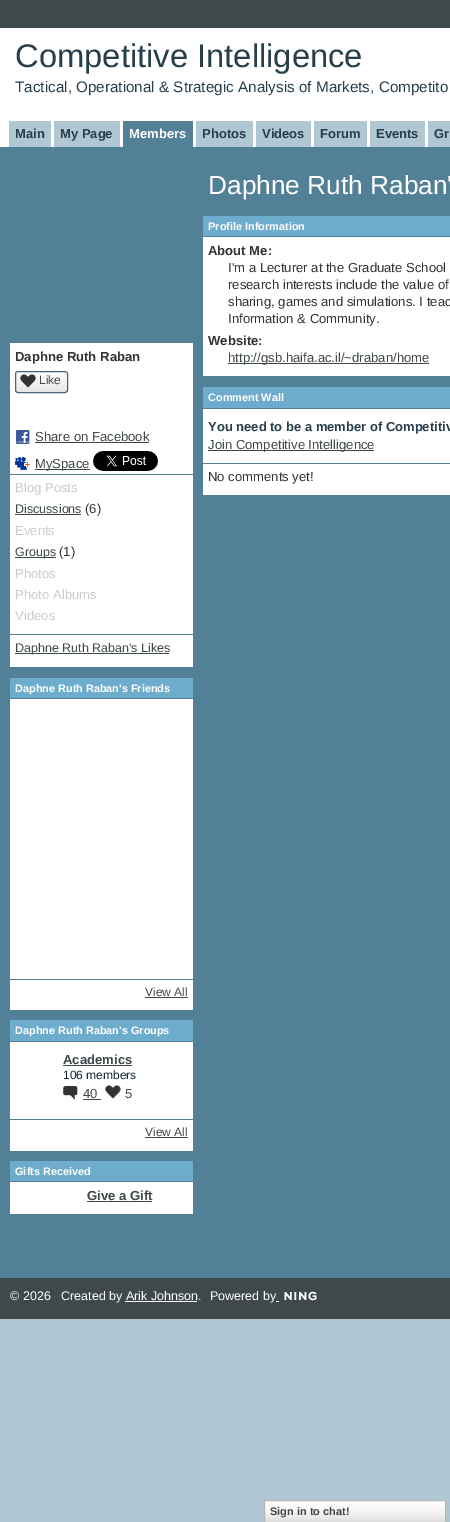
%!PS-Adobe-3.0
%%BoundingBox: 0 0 450 1522
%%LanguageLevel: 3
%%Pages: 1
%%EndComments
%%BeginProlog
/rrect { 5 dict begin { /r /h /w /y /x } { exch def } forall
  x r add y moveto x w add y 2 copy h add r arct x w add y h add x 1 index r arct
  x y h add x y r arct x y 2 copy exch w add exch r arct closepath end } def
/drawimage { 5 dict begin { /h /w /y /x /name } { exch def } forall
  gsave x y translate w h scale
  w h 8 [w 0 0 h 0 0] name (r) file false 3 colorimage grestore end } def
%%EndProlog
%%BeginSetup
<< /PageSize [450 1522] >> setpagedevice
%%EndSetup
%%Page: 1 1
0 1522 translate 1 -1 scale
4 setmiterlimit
0.694 0.784 0.831 setrgbcolor
0 0 450 1522 rectfill
0.247 0.282 0.294 setrgbcolor
0 0 450 28 rectfill
1 setgray
0 28 450 119 rectfill
0.694 0.784 0.831 setrgbcolor
9 121 42 26 rectfill
54 121 66 26 rectfill
0.322 0.502 0.592 setrgbcolor
123 121 70 26 rectfill
0.694 0.784 0.831 setrgbcolor
196 121 57 26 rectfill
256 121 55 26 rectfill
314 121 53 26 rectfill
370 121 55 26 rectfill
428 121 22 26 rectfill
0.322 0.502 0.592 setrgbcolor
0 147 450 1131 rectfill
1 setgray
10 343 183 131 rectfill
(images/1.raw) 15 374 53 19 drawimage
0.282 0.4 0.463 setrgbcolor
15.5 371.5 52 21 2.5 rrect stroke
(images/2.raw) 20 374 16 14 drawimage
(images/3.raw) 16 430 14 14 drawimage
0.247 0.282 0.294 setrgbcolor
35 442 114 1 rectfill
(images/4.raw) 15 457 15 13 drawimage
35 469 55 1 rectfill
(images/5.raw) 93 451 65 20 drawimage
1 setgray
10 475 183 159 rectfill
0.247 0.282 0.294 setrgbcolor
15 514 66 1 rectfill
15 557 41 1 rectfill
1 setgray
10 635 183 32 rectfill
0.247 0.282 0.294 setrgbcolor
15 653 154 1 rectfill
0.427 0.675 0.8 setrgbcolor
10 678 183 20 rectfill
1 setgray
10 699 183 280 rectfill
10 980 183 30 rectfill
0.247 0.282 0.294 setrgbcolor
145 997 43 1 rectfill
0.427 0.675 0.8 setrgbcolor
10 1020 183 21 rectfill
1 setgray
10 1042 183 77 rectfill
0.247 0.282 0.294 setrgbcolor
63 1065 69 1 rectfill
(images/6.raw) 63 1086 15 14 drawimage
83 1099 18 1 rectfill
(images/7.raw) 105 1085 16 14 drawimage
1 setgray
10 1120 183 31 rectfill
0.247 0.282 0.294 setrgbcolor
145 1137 43 1 rectfill
0.427 0.675 0.8 setrgbcolor
10 1161 183 20 rectfill
1 setgray
10 1182 183 32 rectfill
0.247 0.282 0.294 setrgbcolor
87 1201 65 1 rectfill
0.427 0.675 0.8 setrgbcolor
203 216 247 20 rectfill
1 setgray
203 237 247 139 rectfill
0.247 0.282 0.294 setrgbcolor
228 363 201 1 rectfill
0.427 0.675 0.8 setrgbcolor
203 387 247 21 rectfill
1 setgray
203 409 247 54 rectfill
0.247 0.282 0.294 setrgbcolor
208 450 166 1 rectfill
1 setgray
203 464 247 31 rectfill
0.247 0.282 0.294 setrgbcolor
0 1278 450 41 rectfill
(images/8.raw) 284 1291 33 10 drawimage
1 setgray
125 1301 72 1 rectfill
276 1301 3 1 rectfill
(images/9.raw) 265 1501 180 21 drawimage
0.718 setgray
264.5 1500.5 181 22 rectstroke
/LiberationSans-Regular [32.75 0 0 -32.75 0 0] selectfont
0.157 0.247 0.294 setrgbcolor
15 67 moveto (Competitive Intelligence) show
/LiberationSans-Regular [15.25 0 0 -15.25 0 0] selectfont
15 92 moveto (Tactical, Operational & Strategic Analysis of Markets, Competito) show
/LiberationSans-Bold [13 0 0 -13 0 0] selectfont
15 138 moveto (Main) show
60 138 moveto (My Page) show
1 setgray
129 138 moveto (Members) show
0.157 0.247 0.294 setrgbcolor
202 138 moveto (Photos) show
262 138 moveto (Videos) show
320 138 moveto (Forum) show
376 138 moveto (Events) show
434 138 moveto (Gr) show
/LiberationSans-Bold [13.1 0 0 -13.1 0 0] selectfont
0.2 setgray
15 361 moveto (Daphne Ruth Raban) show
/LiberationSans-Regular [12 0 0 -12 0 0] selectfont
0.247 0.282 0.294 setrgbcolor
39 384 moveto (Like) show
/LiberationSans-Regular [13.1 0 0 -13.1 0 0] selectfont
35 441 moveto (Share on Facebook) show
35 468 moveto (MySpace) show
0.8 setgray
15 492 moveto (Blog Posts) show
/LiberationSans-Regular [12.5 0 0 -12.5 0 0] selectfont
0.247 0.282 0.294 setrgbcolor
15 513 moveto (Discussions) show
/LiberationSans-Regular [13.1 0 0 -13.1 0 0] selectfont
0.2 setgray
85 513 moveto (\(6\)) show
0.8 setgray
15 535 moveto (Events) show
/LiberationSans-Regular [12.5 0 0 -12.5 0 0] selectfont
0.247 0.282 0.294 setrgbcolor
15 556 moveto (Groups) show
/LiberationSans-Regular [13.1 0 0 -13.1 0 0] selectfont
0.2 setgray
59 556 moveto (\(1\)) show
0.8 setgray
15 578 moveto (Photos) show
15 599 moveto (Photo Albums) show
15 620 moveto (Videos) show
/LiberationSans-Regular [12.5 0 0 -12.5 0 0] selectfont
0.247 0.282 0.294 setrgbcolor
15 652 moveto (Daphne Ruth Raban's Likes) show
/LiberationSans-Bold [10.9 0 0 -10.9 0 0] selectfont
1 setgray
15 692 moveto (Daphne Ruth Raban's Friends) show
/LiberationSans-Regular [12 0 0 -12 0 0] selectfont
0.247 0.282 0.294 setrgbcolor
145 996 moveto (View All) show
/LiberationSans-Bold [10.9 0 0 -10.9 0 0] selectfont
1 setgray
15 1034 moveto (Daphne Ruth Raban's Groups) show
/LiberationSans-Bold [13.1 0 0 -13.1 0 0] selectfont
0.247 0.282 0.294 setrgbcolor
63 1064 moveto (Academics) show
/LiberationSans-Regular [12 0 0 -12 0 0] selectfont
0.063 0.153 0.196 setrgbcolor
63 1079 moveto (106 members) show
/LiberationSans-Regular [13.1 0 0 -13.1 0 0] selectfont
0.247 0.282 0.294 setrgbcolor
83 1098 moveto (40) show
125 1098 moveto (5) show
/LiberationSans-Regular [12 0 0 -12 0 0] selectfont
145 1136 moveto (View All) show
/LiberationSans-Bold [10.9 0 0 -10.9 0 0] selectfont
1 setgray
15 1175 moveto (Gifts Received) show
/LiberationSans-Bold [13.1 0 0 -13.1 0 0] selectfont
0.247 0.282 0.294 setrgbcolor
87 1200 moveto (Give a Gift) show
/LiberationSans-Regular [26.25 0 0 -26.25 0 0] selectfont
1 setgray
208 194 moveto (Daphne Ruth Raban') show
/LiberationSans-Bold [10.9 0 0 -10.9 0 0] selectfont
208 230 moveto (Profile Information) show
/LiberationSans-Bold [13.1 0 0 -13.1 0 0] selectfont
0.2 setgray
208 255 moveto (About Me:) show
/LiberationSans-Regular [13.1 0 0 -13.1 0 0] selectfont
228 272 moveto (I'm a Lecturer at the Graduate School) show
228 289 moveto (research interests include the value of) show
228 306 moveto (sharing, games and simulations. I teac) show
228 323 moveto (Information & Community.) show
/LiberationSans-Bold [13.1 0 0 -13.1 0 0] selectfont
208 345 moveto (Website:) show
/LiberationSans-Regular [13.1 0 0 -13.1 0 0] selectfont
0.247 0.282 0.294 setrgbcolor
228 362 moveto (http://gsb.haifa.ac.il/~draban/home) show
/LiberationSans-Bold [10.9 0 0 -10.9 0 0] selectfont
1 setgray
208 401 moveto (Comment Wall) show
/LiberationSans-Bold [13 0 0 -13 0 0] selectfont
0.157 0.247 0.294 setrgbcolor
208 431 moveto (You need to be a member of Competitiv) show
/LiberationSans-Regular [13.1 0 0 -13.1 0 0] selectfont
0.247 0.282 0.294 setrgbcolor
208 449 moveto (Join Competitive Intelligence) show
0.2 setgray
208 481 moveto (No comments yet!) show
/LiberationSans-Regular [12.5 0 0 -12.5 0 0] selectfont
1 setgray
10 1300 moveto (© 2026) show
61 1300 moveto (Created by Arik Johnson.) show
210 1300 moveto (Powered by) show
/LiberationSans-Bold [11 0 0 -11 0 0] selectfont
0.271 setgray
270 1515 moveto (Sign in to chat!) show
showpage
%%EOF
